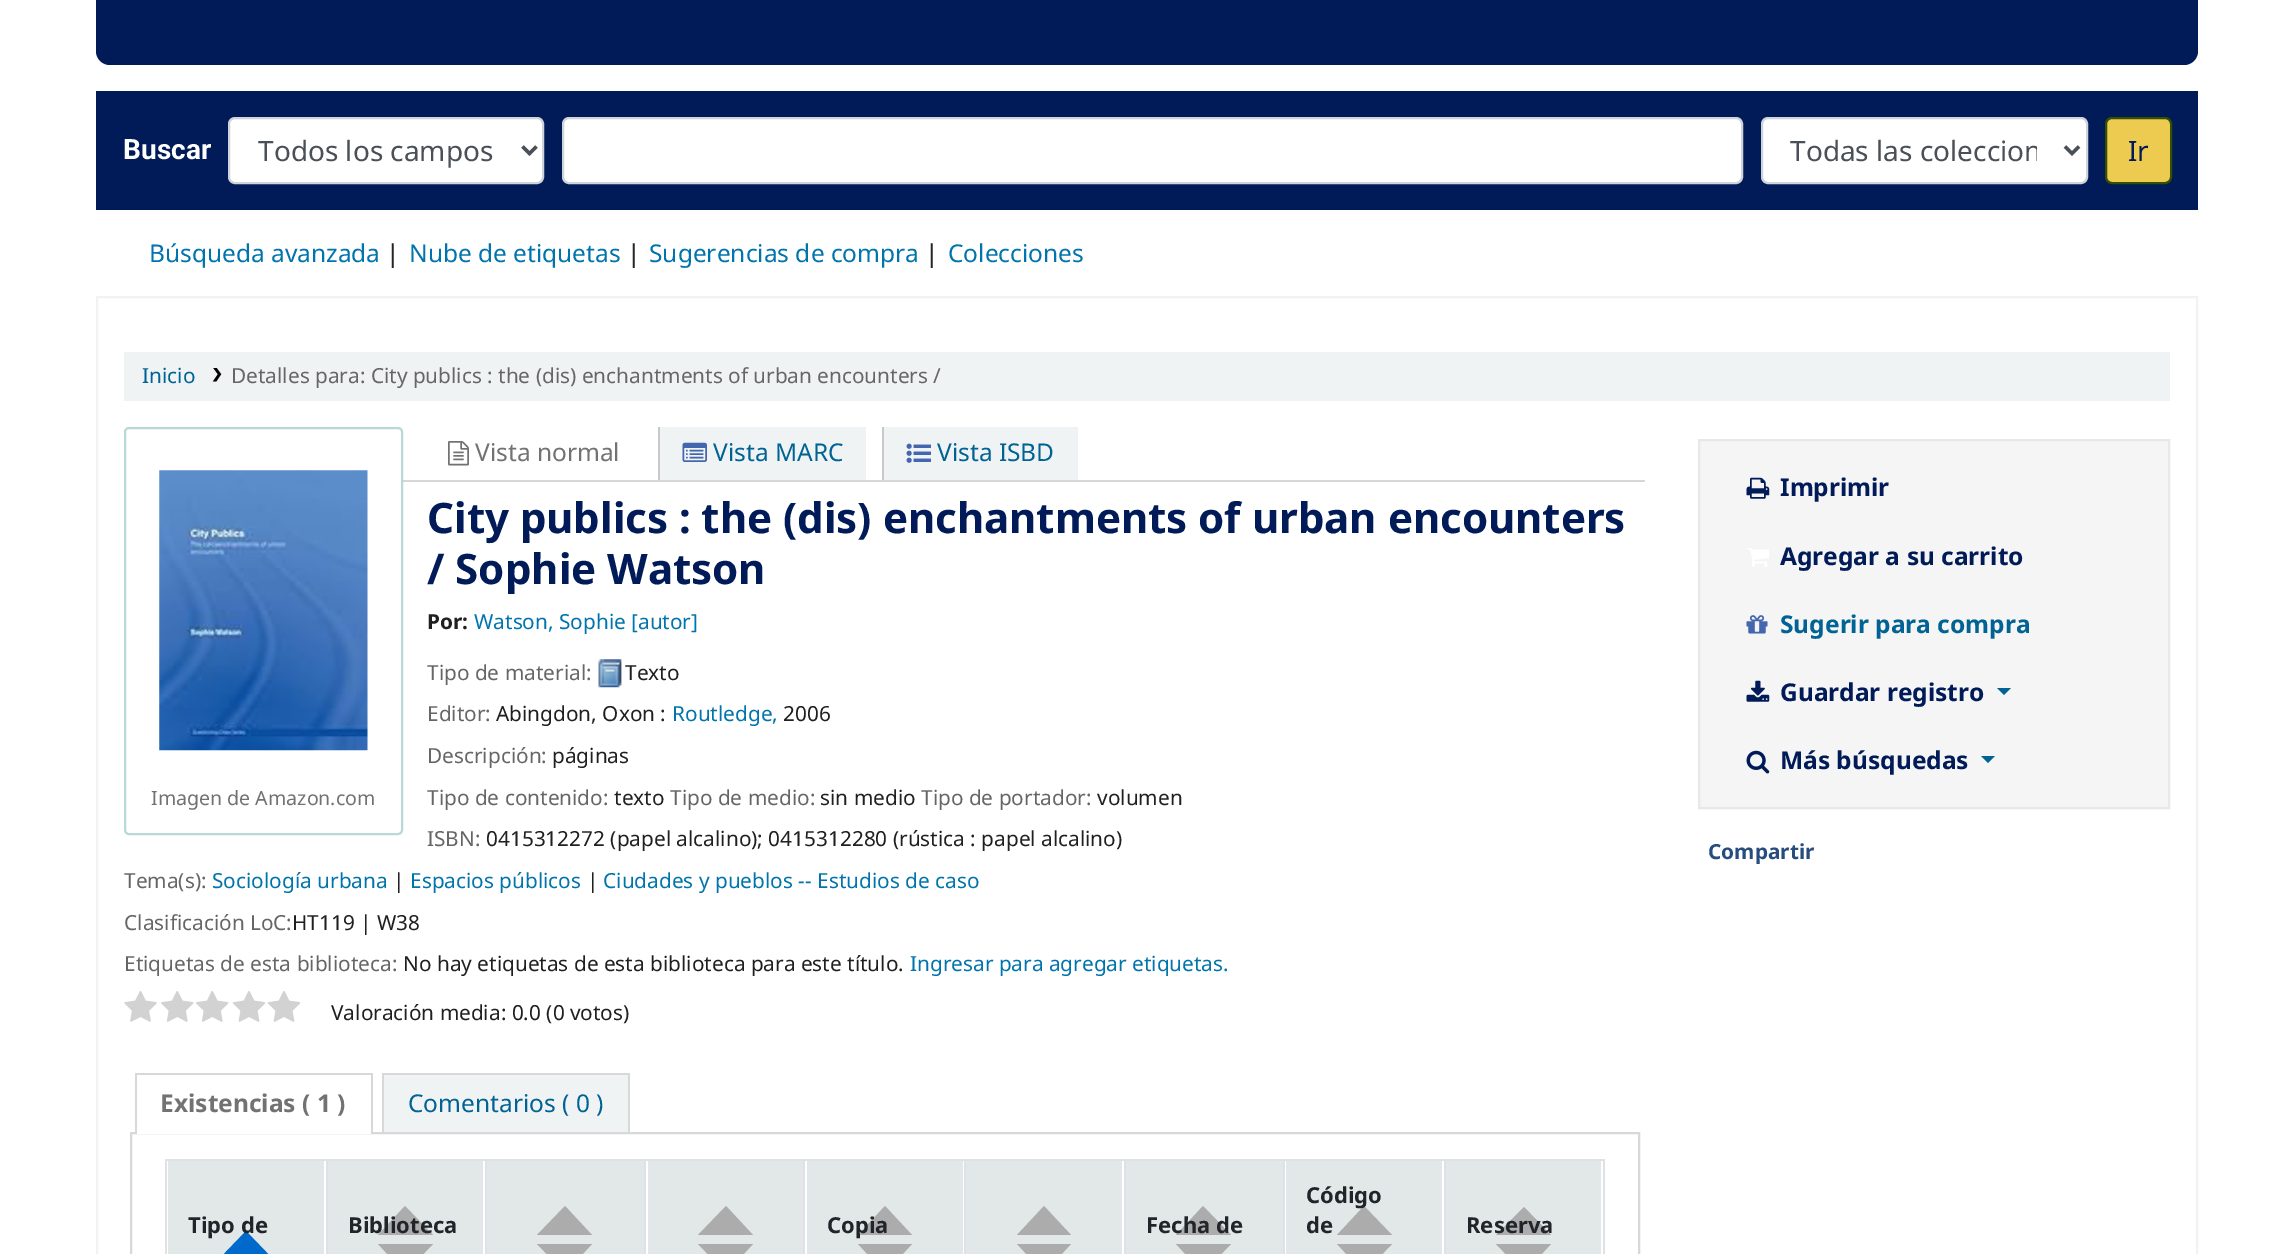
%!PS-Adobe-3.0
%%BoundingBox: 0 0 2294 1254
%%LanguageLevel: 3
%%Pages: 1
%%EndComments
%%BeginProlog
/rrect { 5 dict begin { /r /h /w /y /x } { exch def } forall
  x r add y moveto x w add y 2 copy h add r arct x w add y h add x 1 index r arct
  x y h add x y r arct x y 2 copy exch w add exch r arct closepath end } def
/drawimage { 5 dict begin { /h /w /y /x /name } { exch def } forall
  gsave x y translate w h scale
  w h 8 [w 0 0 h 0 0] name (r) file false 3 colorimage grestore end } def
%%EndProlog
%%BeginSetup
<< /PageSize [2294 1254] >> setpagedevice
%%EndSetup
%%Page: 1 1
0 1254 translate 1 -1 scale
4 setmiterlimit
1 setgray
0 0 2294 1254 rectfill
0 0.106 0.345 setrgbcolor
96 -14 2102 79 14 rrect fill
96 91 2102 119 rectfill
1 setgray
229 118 314 65 6 rrect gsave fill grestore
0.808 0.831 0.855 setrgbcolor
2 setlinewidth
stroke
0.286 0.314 0.341 setrgbcolor
3.5 setlinewidth
newpath 522.5 146.5 moveto 529.5 153.5 lineto 536.5 146.5 lineto stroke
1 setgray
563 118 1179 65 6 rrect gsave fill grestore
0.808 0.831 0.855 setrgbcolor
2 setlinewidth
stroke
1 setgray
1762 118 325 65 6 rrect gsave fill grestore
0.808 0.831 0.855 setrgbcolor
stroke
0.286 0.314 0.341 setrgbcolor
3.5 setlinewidth
newpath 2065 146.5 moveto 2072 153.5 lineto 2079 146.5 lineto stroke
0.929 0.792 0.314 setrgbcolor
2106 118 65 65 6 rrect gsave fill grestore
0.2 0.314 0 setrgbcolor
2 setlinewidth
stroke
0.941 0.953 0.953 setrgbcolor
97 297 2100 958 rectstroke
124 352 2046 49 rectfill
(images/1.raw) 212 368 10 14 drawimage
0.839 setgray
403 480 1242 2 rectfill
(images/2.raw) 448 441 21 25 drawimage
0.941 0.953 0.953 setrgbcolor
660 427 206 53 rectfill
0.788 setgray
658 427 2 53 rectfill
(images/3.raw) 682 442 25 20 drawimage
0.941 0.953 0.953 setrgbcolor
884 427 194 53 rectfill
0.788 setgray
882 427 2 53 rectfill
(images/4.raw) 906 443 25 20 drawimage
(images/5.raw) 598 659 24 29 drawimage
0.725 0.847 0.851 setrgbcolor
125 428 277 406 4 rrect stroke
(images/6.raw) 159 470 209 281 drawimage
(images/7.raw) 124 991 33 31 drawimage
(images/8.raw) 161 991 33 31 drawimage
(images/8.raw) 196 991 33 31 drawimage
(images/9.raw) 232 991 34 31 drawimage
(images/9.raw) 267 991 34 31 drawimage
0.847 setgray
131 1133 1508 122 rectstroke
1 setgray
137 1132 234 2 rectfill
0.847 setgray
135 1073 238 2 rectfill
371 1073 2 61 rectfill
135 1073 2 61 rectfill
0.941 0.953 0.953 setrgbcolor
384 1075 244 57 rectfill
0.847 setgray
382 1073 248 2 rectfill
628 1073 2 59 rectfill
382 1073 2 59 rectfill
0.871 0.886 0.902 setrgbcolor
165 1159 1440 2 rectfill
1603 1159 2 95 rectfill
165 1159 2 95 rectfill
0.886 0.91 0.91 setrgbcolor
168 1161 156 93 rectfill
0 0.416 0.8 setrgbcolor
newpath 273 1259 moveto 219 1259 lineto 246 1231 lineto closepath fill
0.886 0.91 0.91 setrgbcolor
328 1161 155 93 rectfill
0.675 setgray
newpath 433 1244 moveto 378 1244 lineto 405 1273 lineto closepath 433 1235 moveto 378 1235 lineto 405 1206 lineto closepath fill
0.871 0.886 0.902 setrgbcolor
326 1159 2 95 rectfill
0.886 0.91 0.91 setrgbcolor
487 1161 157 93 rectfill
0.675 setgray
newpath 592 1244 moveto 537 1244 lineto 565 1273 lineto closepath 592 1235 moveto 537 1235 lineto 565 1206 lineto closepath fill
0.871 0.886 0.902 setrgbcolor
485 1159 2 95 rectfill
0.886 0.91 0.91 setrgbcolor
648 1161 155 93 rectfill
0.675 setgray
newpath 753 1244 moveto 698 1244 lineto 726 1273 lineto closepath 753 1235 moveto 698 1235 lineto 726 1206 lineto closepath fill
0.871 0.886 0.902 setrgbcolor
644 1159 2 95 rectfill
0.886 0.91 0.91 setrgbcolor
807 1161 156 93 rectfill
0.675 setgray
newpath 912 1244 moveto 858 1244 lineto 885 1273 lineto closepath 912 1235 moveto 858 1235 lineto 885 1206 lineto closepath fill
0.871 0.886 0.902 setrgbcolor
803 1159 2 95 rectfill
0.886 0.91 0.91 setrgbcolor
966 1161 156 93 rectfill
0.675 setgray
newpath 1071 1244 moveto 1017 1244 lineto 1044 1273 lineto closepath 1071 1235 moveto 1017 1235 lineto 1044 1206 lineto closepath fill
0.871 0.886 0.902 setrgbcolor
964 1159 2 95 rectfill
0.886 0.91 0.91 setrgbcolor
1126 1161 157 93 rectfill
0.675 setgray
newpath 1231 1244 moveto 1176 1244 lineto 1203 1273 lineto closepath 1231 1235 moveto 1176 1235 lineto 1203 1206 lineto closepath fill
0.871 0.886 0.902 setrgbcolor
1124 1159 2 95 rectfill
0.886 0.91 0.91 setrgbcolor
1286 1161 156 93 rectfill
0.675 setgray
newpath 1392 1244 moveto 1337 1244 lineto 1364 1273 lineto closepath 1392 1235 moveto 1337 1235 lineto 1364 1206 lineto closepath fill
0.871 0.886 0.902 setrgbcolor
1283 1159 2 95 rectfill
0.886 0.91 0.91 setrgbcolor
1446 1161 155 93 rectfill
0.675 setgray
newpath 1551 1244 moveto 1496 1244 lineto 1524 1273 lineto closepath 1551 1235 moveto 1496 1235 lineto 1524 1207 lineto closepath fill
0.871 0.886 0.902 setrgbcolor
1444 1159 2 95 rectfill
0.961 setgray
newpath 1699 440 moveto 2169 440 lineto 2169 808 lineto 1699 808 lineto closepath gsave fill grestore
0.91 setgray
stroke
(images/10.raw) 1746 477 24 22 drawimage
(images/11.raw) 1747 548 22 19 drawimage
(images/12.raw) 1746 615 22 19 drawimage
(images/13.raw) 1746 680 24 22 drawimage
0 0.388 0.58 setrgbcolor
newpath 1997 688 moveto 2011 688 lineto 2004 695 lineto closepath fill
(images/14.raw) 1746 750 24 24 drawimage
newpath 1981 756 moveto 1995 756 lineto 1988 763 lineto closepath fill
/Roboto-Bold [28 0 0 -28 0 0] selectfont
1 setgray
123 159 moveto (Buscar) show
/NotoSans-Regular [28 0 0 -28 0 0] selectfont
0.286 0.314 0.341 setrgbcolor
258 161 moveto (Todos los campos) show
gsave
1790 130 247 42 rectclip
1790 161 moveto (Todas las coleccion) show
grestore
0 0.106 0.345 setrgbcolor
2128 161 moveto (Ir) show
/NotoSans-Regular [24.5 0 0 -24.5 0 0] selectfont
0 0.455 0.678 setrgbcolor
149 262 moveto (Búsqueda avanzada) show
0.129 0.145 0.161 setrgbcolor
386 262 moveto (|) show
0 0.455 0.678 setrgbcolor
409 262 moveto (Nube de etiquetas) show
0.129 0.145 0.161 setrgbcolor
627 262 moveto (|) show
0 0.455 0.678 setrgbcolor
649 262 moveto (Sugerencias de compra) show
0.129 0.145 0.161 setrgbcolor
925 262 moveto (|) show
0 0.455 0.678 setrgbcolor
948 262 moveto (Colecciones) show
/NotoSans-Regular [20.8 0 0 -20.8 0 0] selectfont
0 0.388 0.58 setrgbcolor
142 383 moveto (Inicio) show
0.4 setgray
231 383 moveto (Detalles para: City publics : the \(dis\) enchantments of urban encounters /) show
/NotoSans-Regular [24.5 0 0 -24.5 0 0] selectfont
0.447 setgray
475 461 moveto (Vista normal) show
0 0.388 0.58 setrgbcolor
713 461 moveto (Vista MARC) show
937 461 moveto (Vista ISBD) show
/NotoSans-Bold [42 0 0 -42 0 0] selectfont
0 0.106 0.345 setrgbcolor
427 533 moveto (City publics : the \(dis\) enchantments of urban encounters) show
427 584 moveto (/ Sophie Watson) show
/NotoSans-Bold [20.8 0 0 -20.8 0 0] selectfont
0.125 setgray
427 629 moveto (Por:) show
/NotoSans-Regular [20.8 0 0 -20.8 0 0] selectfont
0 0.455 0.678 setrgbcolor
474 629 moveto (Watson, Sophie [autor]) show
0.4 setgray
427 680 moveto (Tipo de material:) show
0.125 setgray
625 680 moveto (Texto) show
0.4 setgray
427 721 moveto (Editor:) show
0.125 setgray
496 721 moveto (Abingdon, Oxon :) show
0 0.455 0.678 setrgbcolor
672 721 moveto (Routledge,) show
0.125 setgray
783 721 moveto (2006) show
0.4 setgray
427 763 moveto (Descripción:) show
0.125 setgray
552 763 moveto (páginas) show
0.4 setgray
427 805 moveto (Tipo de contenido:) show
0.125 setgray
614 805 moveto (texto) show
0.4 setgray
670 805 moveto (Tipo de medio:) show
0.125 setgray
820 805 moveto (sin medio) show
0.4 setgray
921 805 moveto (Tipo de portador:) show
0.125 setgray
1097 805 moveto (volumen) show
0.4 setgray
427 846 moveto (ISBN:) show
0.125 setgray
486 846 moveto (0415312272 \(papel alcalino\); 0415312280 \(rústica : papel alcalino\)) show
0.4 setgray
124 888 moveto (Tema\(s\):) show
0 0.455 0.678 setrgbcolor
212 888 moveto (Sociología urbana) show
0.125 setgray
393 888 moveto (|) show
0 0.455 0.678 setrgbcolor
410 888 moveto (Espacios públicos) show
0.125 setgray
587 888 moveto (|) show
0 0.455 0.678 setrgbcolor
603 888 moveto (Ciudades y pueblos -- Estudios de caso) show
0.4 setgray
124 930 moveto (Clasificación LoC:) show
0.125 setgray
292 930 moveto (HT119 | W38) show
/NotoSans-Regular [19.6 0 0 -19.6 0 0] selectfont
0.447 setgray
151 805 moveto (Imagen de Amazon.com) show
/NotoSans-Regular [20.8 0 0 -20.8 0 0] selectfont
0.4 setgray
124 971 moveto (Etiquetas de esta biblioteca:) show
0.125 setgray
403 971 moveto (No hay etiquetas de esta biblioteca para este título.) show
0 0.455 0.678 setrgbcolor
910 971 moveto (Ingresar para agregar etiquetas.) show
0.125 setgray
331 1020 moveto (Valoración media: 0.0 \(0 votos\)) show
/NotoSans-Bold [24.5 0 0 -24.5 0 0] selectfont
0.447 setgray
160 1112 moveto (Existencias \( 1 \)) show
/NotoSans-Regular [24.5 0 0 -24.5 0 0] selectfont
0 0.388 0.58 setrgbcolor
408 1112 moveto (Comentarios \( 0 \)) show
/NotoSans-Bold [22 0 0 -22 0 0] selectfont
0.129 0.145 0.161 setrgbcolor
188 1233 moveto (Tipo de) show
348 1233 moveto (Biblioteca) show
827 1233 moveto (Copia) show
1146 1233 moveto (Fecha de) show
1306 1203 moveto (Código) show
1306 1233 moveto (de) show
1466 1233 moveto (Reserva) show
/NotoSans-Bold [24.5 0 0 -24.5 0 0] selectfont
0 0.106 0.345 setrgbcolor
1780 496 moveto (Imprimir) show
1780 565 moveto (Agregar a su carrito) show
0 0.388 0.58 setrgbcolor
1780 633 moveto (Sugerir para compra) show
0 0.106 0.345 setrgbcolor
1780 701 moveto (Guardar registro) show
1780 769 moveto (Más búsquedas) show
/NotoSans-Bold [20.8 0 0 -20.8 0 0] selectfont
0.153 0.302 0.498 setrgbcolor
1708 859 moveto (Compartir) show
showpage
%%EOF
